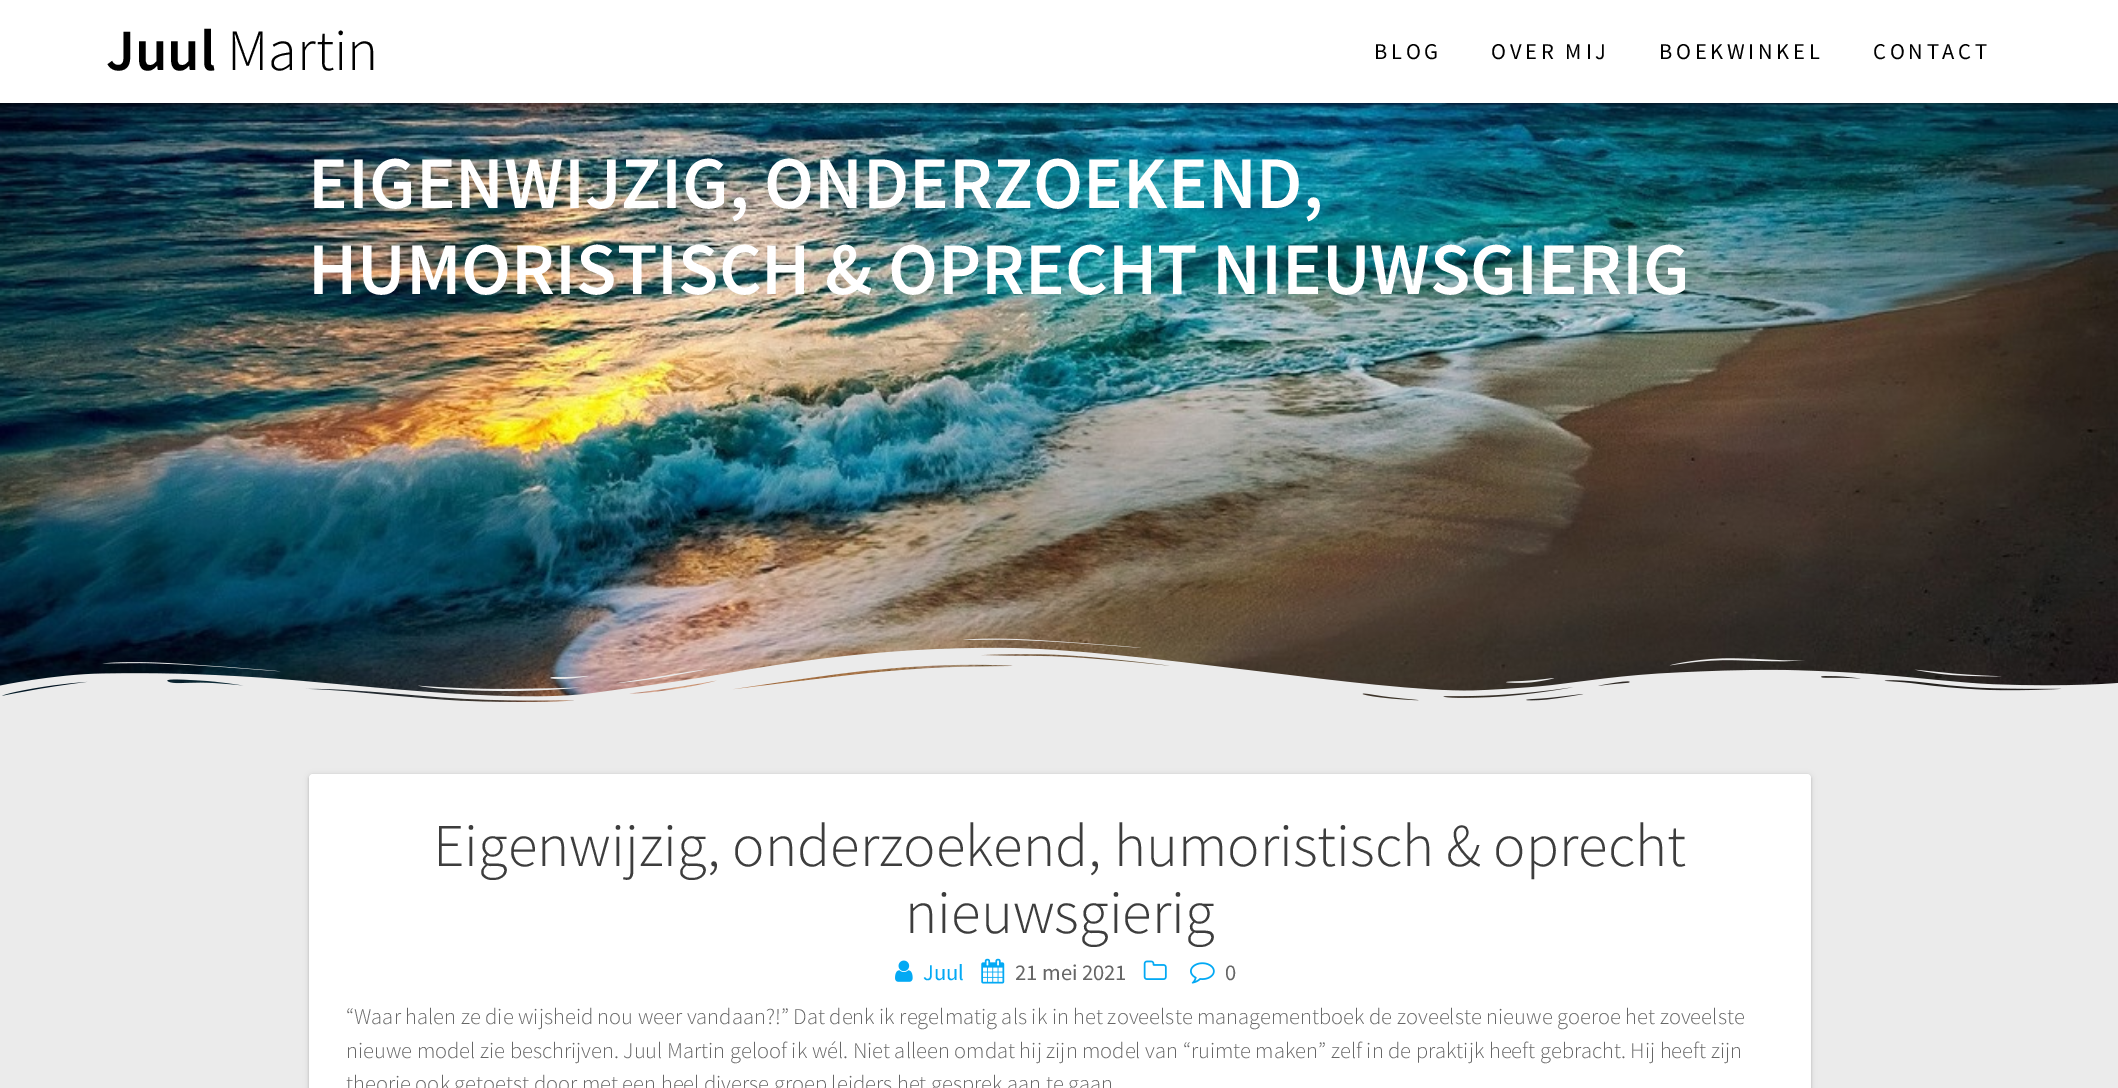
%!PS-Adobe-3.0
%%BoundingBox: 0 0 2118 1088
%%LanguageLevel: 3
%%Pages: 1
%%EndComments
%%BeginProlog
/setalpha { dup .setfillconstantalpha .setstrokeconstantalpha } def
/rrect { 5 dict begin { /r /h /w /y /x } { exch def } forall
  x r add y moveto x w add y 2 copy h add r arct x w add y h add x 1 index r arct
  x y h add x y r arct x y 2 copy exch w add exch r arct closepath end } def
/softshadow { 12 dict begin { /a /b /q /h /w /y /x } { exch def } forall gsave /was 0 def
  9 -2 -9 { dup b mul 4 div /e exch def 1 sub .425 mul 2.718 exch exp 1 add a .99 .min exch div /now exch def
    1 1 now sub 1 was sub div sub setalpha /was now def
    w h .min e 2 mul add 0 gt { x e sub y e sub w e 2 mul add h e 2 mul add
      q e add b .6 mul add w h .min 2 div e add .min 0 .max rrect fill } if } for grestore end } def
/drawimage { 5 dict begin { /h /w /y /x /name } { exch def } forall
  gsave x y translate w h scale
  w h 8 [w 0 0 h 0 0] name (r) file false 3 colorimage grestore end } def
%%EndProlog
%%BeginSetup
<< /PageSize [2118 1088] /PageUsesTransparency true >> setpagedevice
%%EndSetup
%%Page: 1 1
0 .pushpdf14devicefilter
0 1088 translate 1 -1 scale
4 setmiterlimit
0.922 setgray
0 0 2118 1088 rectfill
(images/1.raw) 0 103 2118 599 drawimage
0 setgray
-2 -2 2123 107 0 3 0.33 softshadow
1 setgray
0 0 2118 103 rectfill
(images/2.raw) 0 638 2118 74 drawimage
0 setgray
309 775 1502 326 4 3 0.12 softshadow
309 775 1502 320 4 1 0.14 softshadow
1 setgray
309 774 1502 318 4 rrect fill
(images/3.raw) 895 960 18 22 drawimage
(images/4.raw) 981 958 24 26 drawimage
(images/5.raw) 1143 960 24 20 drawimage
(images/6.raw) 1190 962 25 22 drawimage
/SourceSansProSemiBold-SemiBold [58.5 0 0 -58.5 0 0] selectfont
0 setgray
106 70 moveto (Juul) show
/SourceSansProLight-Light [58.5 0 0 -58.5 0 0] selectfont
227 70 moveto (Martin) show
/SourceSansPro-Regular [22.5 0 0 -22.5 0 0] selectfont
1374 59 moveto 3.75 0 (BLOG) ashow
1491 59 moveto 3.75 0 (OVER MIJ) ashow
1659 59 moveto 3.75 0 (BOEKWINKEL) ashow
1873 59 moveto 3.75 0 (CONTACT) ashow
/SourceSansProSemiBold-SemiBold [74.25 0 0 -74.25 0 0] selectfont
1 setgray
308 208 moveto (EIGENWIJZIG, ONDERZOEKEND,) show
308 294 moveto (HUMORISTISCH & OPRECHT NIEUWSGIERIG) show
/SourceSansProLight-Light [60.75 0 0 -60.75 0 0] selectfont
0.239 setgray
433 866 moveto (Eigenwijzig, onderzoekend, humoristisch & oprecht) show
905 933 moveto (nieuwsgierig) show
/SourceSansPro-Regular [22.5 0 0 -22.5 0 0] selectfont
0.012 0.663 0.957 setrgbcolor
923 980 moveto (Juul) show
0.4 setgray
1015 980 moveto (21 mei 2021) show
1225 980 moveto (0) show
/SourceSansProLight-Light [22.5 0 0 -22.5 0 0] selectfont
346 1024 moveto (“Waar halen ze die wijsheid nou weer vandaan?!” Dat denk ik regelmatig als ik in het zoveelste managementboek de zoveelste nieuwe goeroe het zoveelste) show
346 1058 moveto (nieuwe model zie beschrijven. Juul Martin geloof ik wél. Niet alleen omdat hij zijn model van “ruimte maken” zelf in de praktijk heeft gebracht. Hij heeft zijn) show
346 1091 moveto (theorie ook getoetst door met een heel diverse groep leiders het gesprek aan te gaan) show
.poppdf14devicefilter showpage
%%EOF
